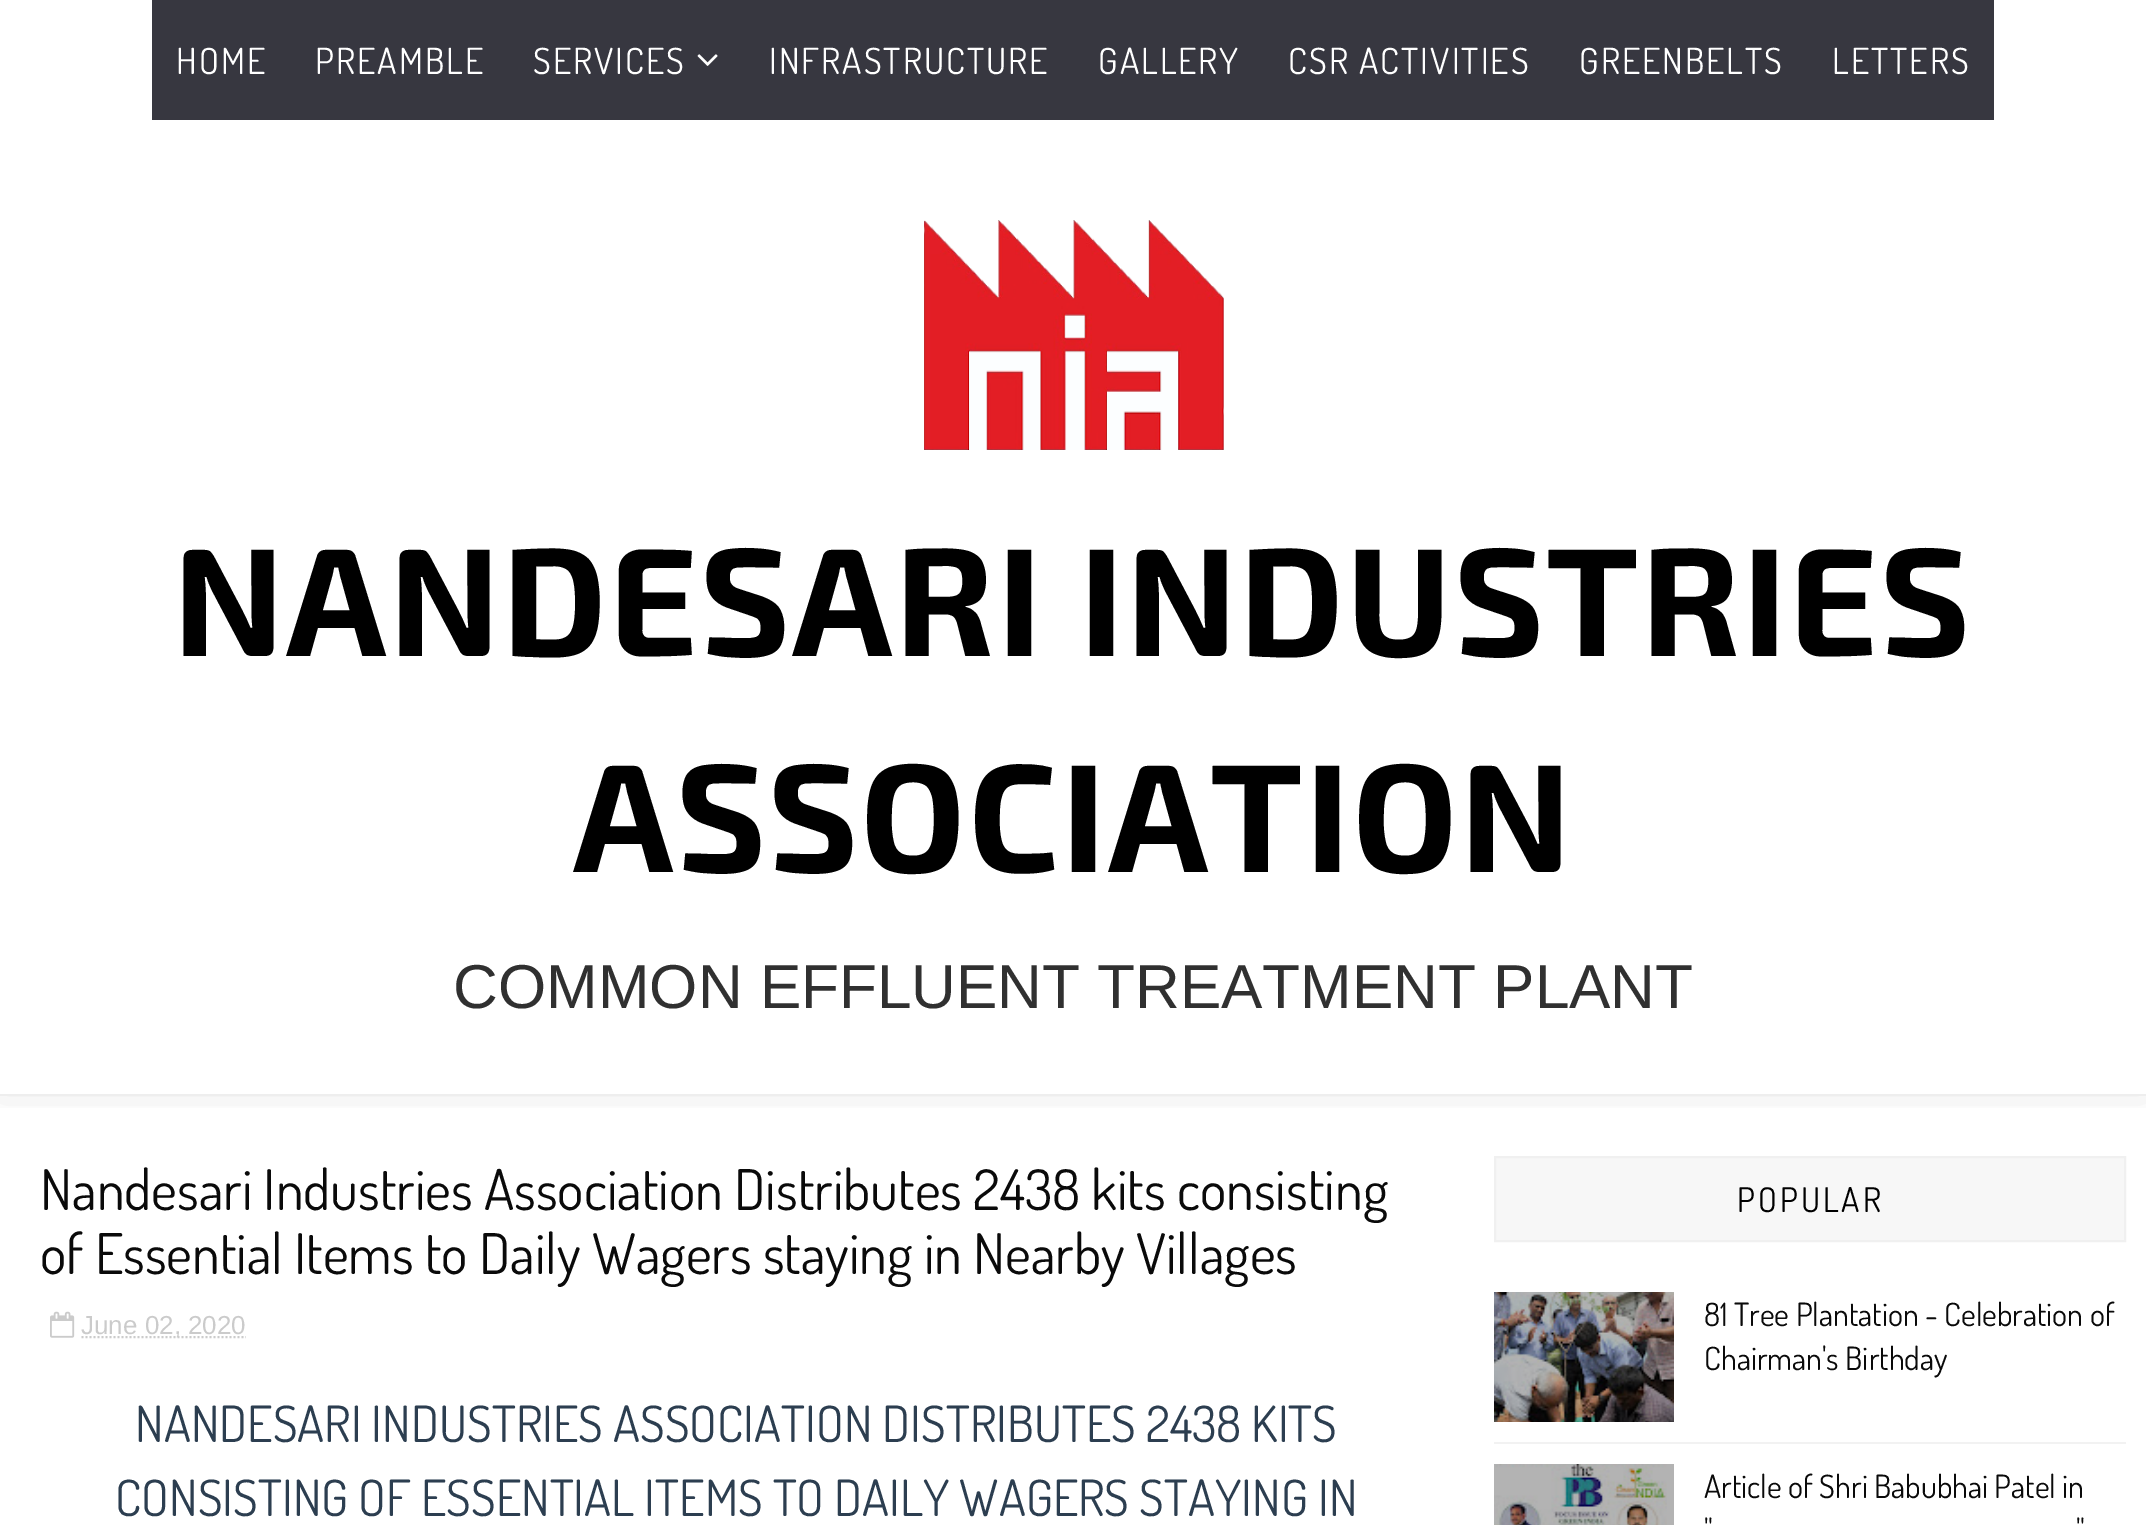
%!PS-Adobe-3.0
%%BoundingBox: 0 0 2146 1525
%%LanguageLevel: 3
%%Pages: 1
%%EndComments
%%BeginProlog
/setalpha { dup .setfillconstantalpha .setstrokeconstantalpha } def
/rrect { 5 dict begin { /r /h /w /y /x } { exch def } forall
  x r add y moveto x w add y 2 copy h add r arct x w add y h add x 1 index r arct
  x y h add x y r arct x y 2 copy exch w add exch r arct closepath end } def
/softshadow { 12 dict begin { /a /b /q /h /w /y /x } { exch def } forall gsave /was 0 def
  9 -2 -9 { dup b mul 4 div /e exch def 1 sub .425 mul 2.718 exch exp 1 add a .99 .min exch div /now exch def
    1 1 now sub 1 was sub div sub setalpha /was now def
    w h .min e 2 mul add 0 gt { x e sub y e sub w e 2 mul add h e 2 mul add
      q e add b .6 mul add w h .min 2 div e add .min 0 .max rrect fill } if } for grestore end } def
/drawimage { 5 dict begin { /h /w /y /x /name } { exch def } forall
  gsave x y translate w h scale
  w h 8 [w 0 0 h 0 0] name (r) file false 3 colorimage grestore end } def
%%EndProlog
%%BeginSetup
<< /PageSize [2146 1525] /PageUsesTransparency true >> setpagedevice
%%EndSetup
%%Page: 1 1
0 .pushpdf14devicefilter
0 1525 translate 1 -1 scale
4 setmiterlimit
1 setgray
0 0 2146 1525 rectfill
0.702 setgray
1667 1464 7 61 rectfill
gsave
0 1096 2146 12 rectclip
0 setgray
0 -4 2146 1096 0 19 0.1 softshadow
grestore
0.933 setgray
0 1094 2146 2 rectfill
0.216 0.216 0.251 setrgbcolor
152 0 1842 120 rectfill
(images/1.raw) 697 54 21 12 drawimage
(images/2.raw) 924 220 300 230 drawimage
(images/3.raw) 50 1311 25 27 drawimage
0.796 setgray
2 setlinewidth
[2 2] 0 setdash
newpath 81.5 1337 moveto 246 1337 lineto stroke
0.969 setgray
newpath 1495 1157 moveto 2125 1157 lineto 2125 1241 lineto 1495 1241 lineto closepath gsave fill grestore
0.941 setgray
[] 0 setdash
stroke
(images/4.raw) 1494 1292 180 130 drawimage
0.949 setgray
1494 1442 632 2 rectfill
(images/5.raw) 1494 1464 173 61 drawimage
/Dosis-Regular [36 0 0 -36 0 0] selectfont
1 setgray
176 74 moveto 2 0 (HOME) ashow
315 74 moveto 2 0 (PREAMBLE) ashow
533 74 moveto 2 0 (SERVICES) ashow
769 74 moveto 2 0 (INFRASTRUCTURE) ashow
1098 74 moveto 2 0 (GALLERY) ashow
1288 74 moveto 2 0 (CSR ACTIVITIES) ashow
1579 74 moveto 2 0 (GREENBELTS) ashow
1832 74 moveto 2 0 (LETTERS) ashow
/Exo2-Bold [154 0 0 -154 0 0] selectfont
0 setgray
173 656 moveto 2 0 (NANDESARI INDUSTRIES) ashow
573 872 moveto 2 0 (ASSOCIATION) ashow
/LiberationSans-Regular [62 0 0 -62 0 0] selectfont
0.188 setgray
453 1008 moveto (COMMON EFFLUENT TREATMENT PLANT) show
/Dosis-Regular [56 0 0 -56 0 0] selectfont
0.039 setgray
40 1210 moveto (Nandesari Industries Association Distributes 2438 kits consisting) show
40 1274 moveto (of Essential Items to Daily Wagers staying in Nearby Villages) show
/LiberationSans-Regular [26 0 0 -26 0 0] selectfont
0.796 setgray
81 1334 moveto (June 02, 2020) show
/Dosis-Regular [50 0 0 -50 0 0] selectfont
0.173 0.243 0.314 setrgbcolor
135 1442 moveto (NANDESARI INDUSTRIES ASSOCIATION DISTRIBUTES 2438 KITS) show
115 1516 moveto (CONSISTING OF ESSENTIAL ITEMS TO DAILY WAGERS STAYING IN) show
/Dosis-Regular [34 0 0 -34 0 0] selectfont
0 setgray
1737 1212 moveto 3 0 (POPULAR) ashow
/Dosis-Regular [32 0 0 -32 0 0] selectfont
0.039 setgray
1704 1326 moveto (81 Tree Plantation - Celebration of) show
1704 1370 moveto (Chairman's Birthday) show
1704 1498 moveto (Article of Shri Babubhai Patel in) show
1704 1542 moveto (") show
2076 1542 moveto (") show
.poppdf14devicefilter showpage
%%EOF
